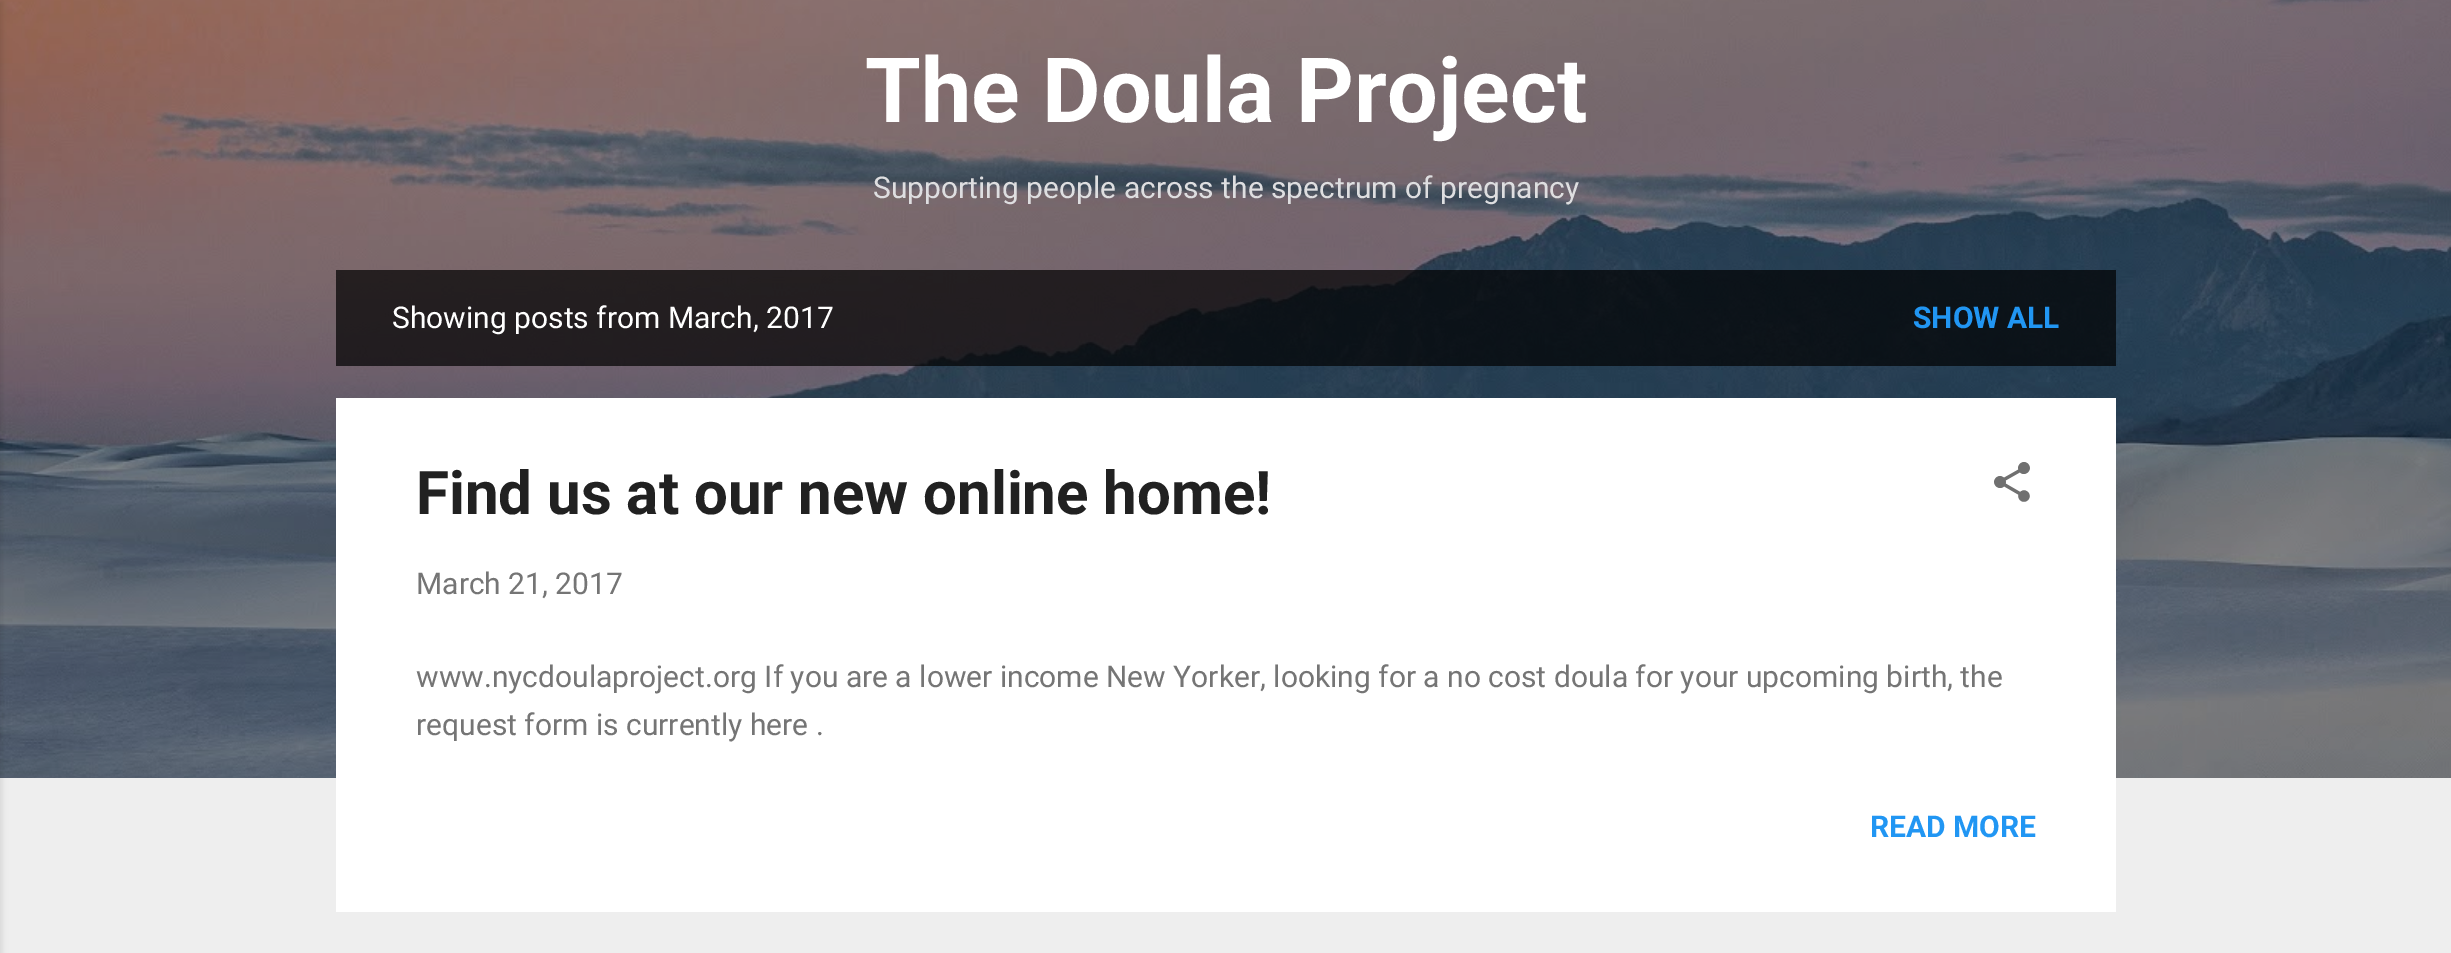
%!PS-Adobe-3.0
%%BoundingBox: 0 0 2451 953
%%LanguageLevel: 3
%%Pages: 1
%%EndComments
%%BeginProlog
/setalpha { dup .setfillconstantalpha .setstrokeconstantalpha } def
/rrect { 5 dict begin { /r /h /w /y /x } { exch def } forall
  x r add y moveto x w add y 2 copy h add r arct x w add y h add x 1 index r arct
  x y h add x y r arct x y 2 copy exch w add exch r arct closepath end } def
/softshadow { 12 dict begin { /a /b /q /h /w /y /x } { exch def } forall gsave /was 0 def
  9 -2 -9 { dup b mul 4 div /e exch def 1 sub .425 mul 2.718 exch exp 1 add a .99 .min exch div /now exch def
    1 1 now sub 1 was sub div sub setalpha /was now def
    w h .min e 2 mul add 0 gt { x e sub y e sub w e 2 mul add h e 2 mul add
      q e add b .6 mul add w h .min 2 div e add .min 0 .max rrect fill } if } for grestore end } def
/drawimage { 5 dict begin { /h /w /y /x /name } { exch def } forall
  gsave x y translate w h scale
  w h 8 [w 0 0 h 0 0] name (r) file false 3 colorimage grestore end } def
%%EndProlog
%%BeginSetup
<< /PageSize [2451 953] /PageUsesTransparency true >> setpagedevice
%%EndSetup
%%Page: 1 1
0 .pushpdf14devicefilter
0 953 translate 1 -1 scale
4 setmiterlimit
0.933 setgray
0 0 2451 953 rectfill
(images/1.raw) 0 0 2451 778 drawimage
0 setgray
-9 2 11 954 0 3 0.1 softshadow
0.7 setalpha
336 270 1780 96 rectfill
1 setalpha
1 setgray
336 398 1780 514 rectfill
(images/2.raw) 1994 462 36 40 drawimage
/Roboto-Bold [90 0 0 -90 0 0] selectfont
865 122 moveto (The Doula Project) show
/Roboto-Regular [30 0 0 -30 0 0] selectfont
0.871 0.871 0.878 setrgbcolor
873 198 moveto (Supporting people across the spectrum of pregnancy) show
1 setgray
392 328 moveto (Showing posts from March, 2017) show
/Roboto-Bold [30 0 0 -30 0 0] selectfont
0.129 0.588 0.953 setrgbcolor
1913 328 moveto (SHOW ALL) show
/Roboto-Bold [60 0 0 -60 0 0] selectfont
0.129 setgray
416 514 moveto (Find us at our new online home!) show
/Roboto-Regular [30 0 0 -30 0 0] selectfont
0.459 setgray
416 594 moveto (March 21, 2017) show
416 687 moveto (www.nycdoulaproject.org If you are a lower income New Yorker, looking for a no cost doula for your upcoming birth, the) show
416 735 moveto (request form is currently here .) show
/Roboto-Bold [30 0 0 -30 0 0] selectfont
0.129 0.588 0.953 setrgbcolor
1870 837 moveto (READ MORE) show
.poppdf14devicefilter showpage
%%EOF
